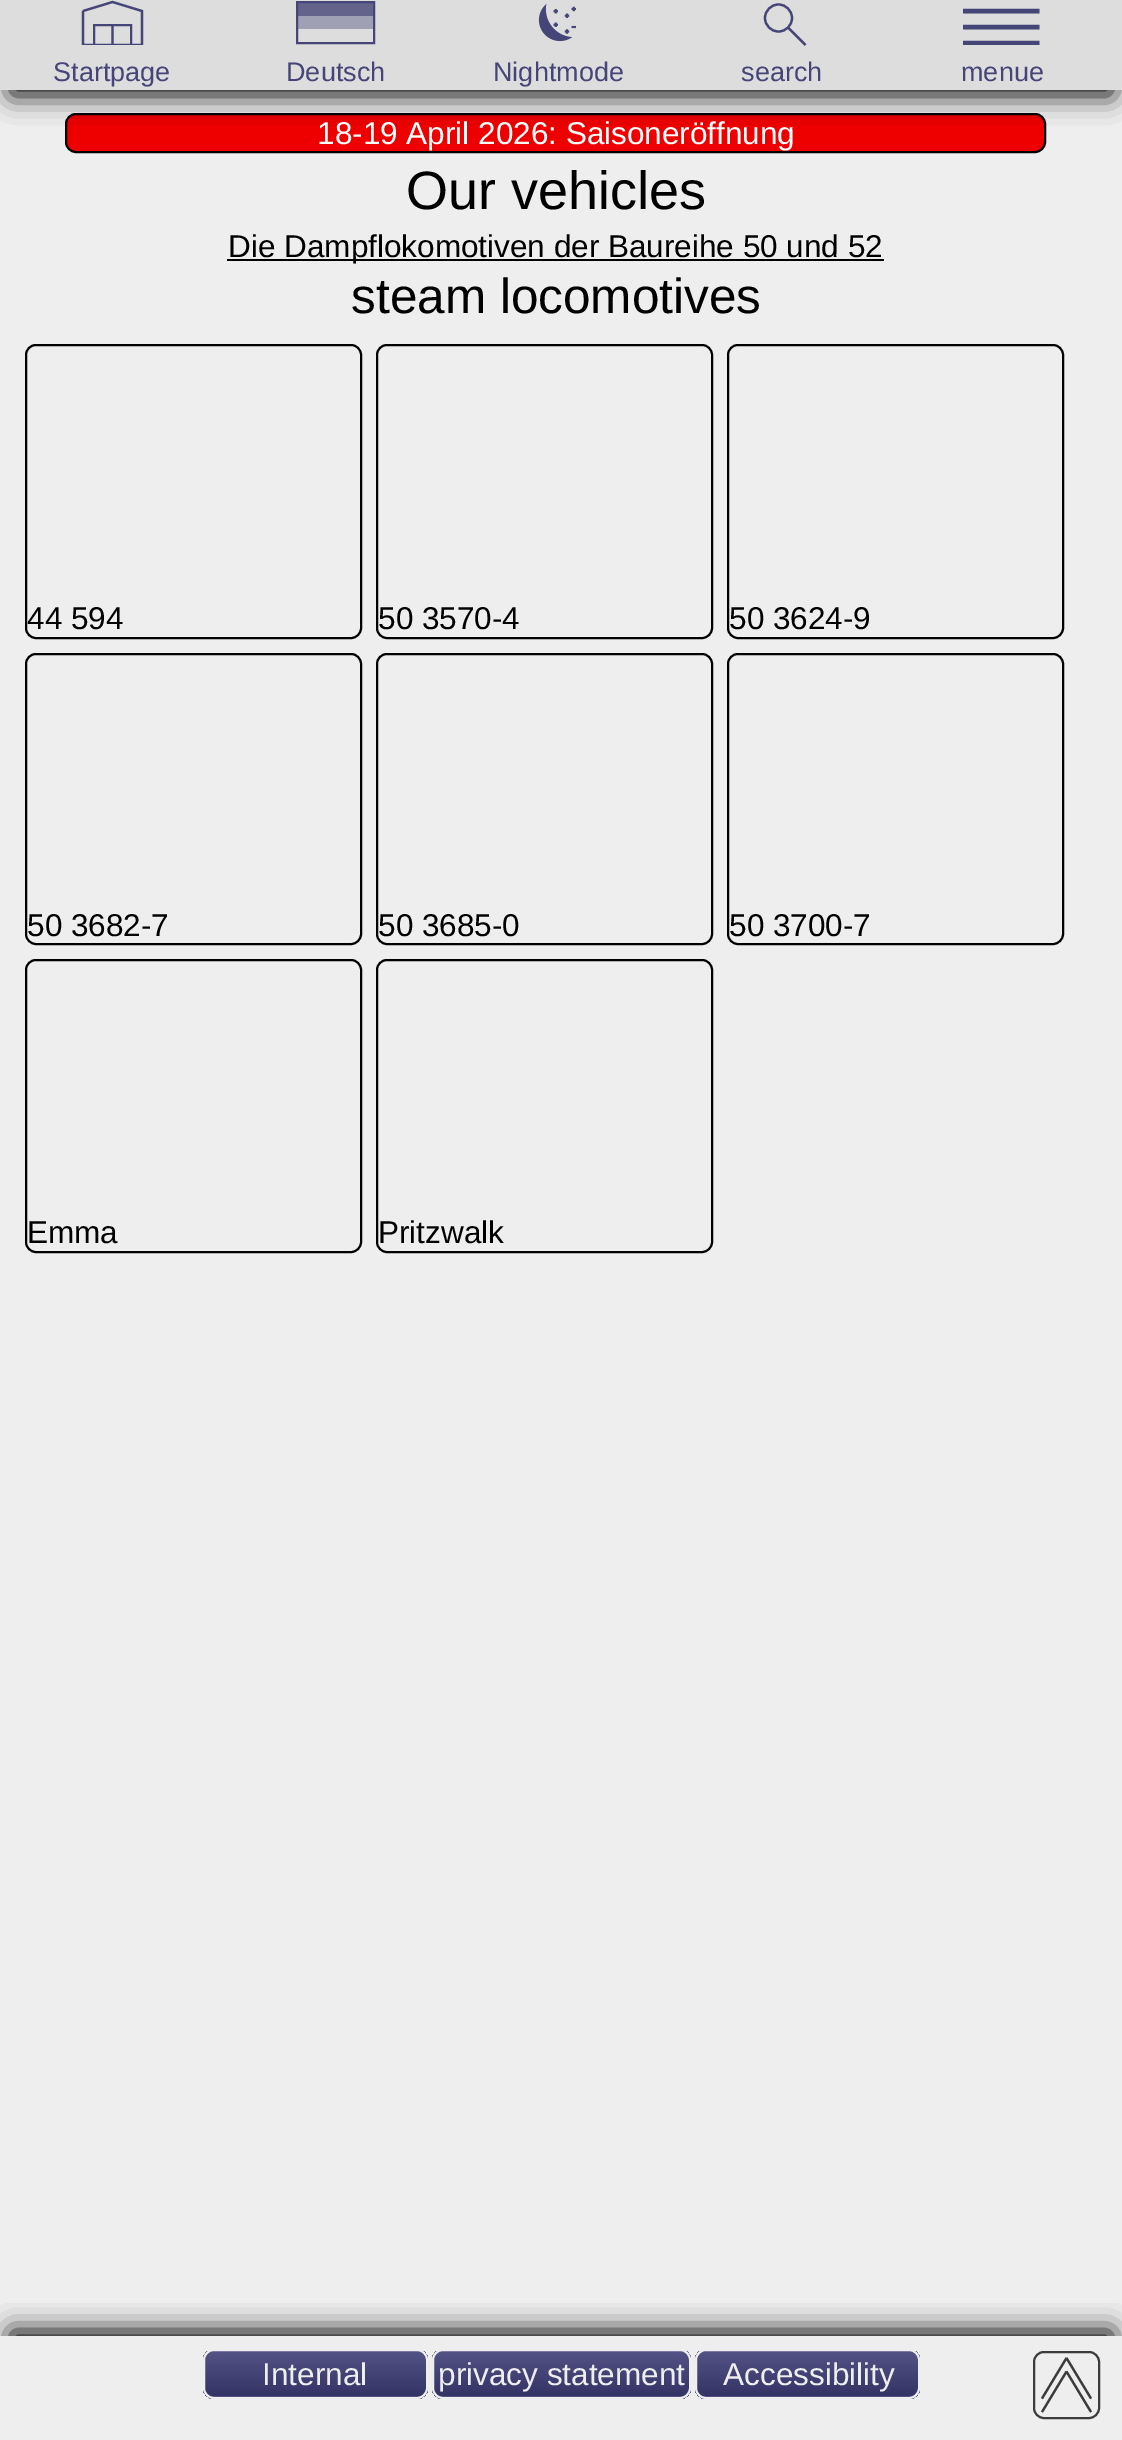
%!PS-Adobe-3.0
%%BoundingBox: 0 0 1122 2440
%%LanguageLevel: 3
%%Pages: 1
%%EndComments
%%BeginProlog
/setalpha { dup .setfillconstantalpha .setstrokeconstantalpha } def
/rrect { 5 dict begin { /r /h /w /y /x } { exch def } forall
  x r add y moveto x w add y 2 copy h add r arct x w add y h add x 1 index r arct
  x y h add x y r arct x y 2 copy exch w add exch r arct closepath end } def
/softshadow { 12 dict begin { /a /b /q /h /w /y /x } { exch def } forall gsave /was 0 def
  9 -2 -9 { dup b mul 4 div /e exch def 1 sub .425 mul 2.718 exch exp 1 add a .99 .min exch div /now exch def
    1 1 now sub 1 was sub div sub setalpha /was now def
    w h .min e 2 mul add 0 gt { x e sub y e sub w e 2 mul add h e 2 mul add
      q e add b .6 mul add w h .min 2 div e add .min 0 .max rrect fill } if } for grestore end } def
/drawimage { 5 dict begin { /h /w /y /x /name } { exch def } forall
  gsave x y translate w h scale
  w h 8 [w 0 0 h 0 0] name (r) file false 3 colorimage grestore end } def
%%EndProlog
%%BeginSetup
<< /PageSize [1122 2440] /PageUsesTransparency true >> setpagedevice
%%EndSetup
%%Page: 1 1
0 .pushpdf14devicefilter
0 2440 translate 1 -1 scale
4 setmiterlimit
0.933 setgray
0 0 1122 2440 rectfill
0.933 0 0 setrgbcolor
66 114 979 38 10 rrect gsave fill grestore
0 setgray
2 setlinewidth
stroke
11 27 1101 68 0 13.5 1 softshadow
0.867 setgray
0 0 1122 90 rectfill
gsave
79 0 67 45 rectclip
0.271 0.271 0.471 setrgbcolor
2.2 setlinewidth
newpath 83 11 moveto 112.5 2 lineto 142 11 lineto 142 45 lineto 83 45 lineto 83 11 lineto stroke
2 setlinewidth
94 25 37 20 rectstroke
grestore
0.271 0.271 0.471 setrgbcolor
2.2 setlinewidth
newpath 112.5 45 moveto 112.5 25 lineto stroke
2 setlinewidth
297 2 77 41 rectstroke
0.8 setalpha
298 3 75 13 rectfill
0.4 setalpha
298 16 75 13 rectfill
1 setalpha
(images/1.raw) 538 3 38 39 drawimage
2.2 setlinewidth
newpath 778.5 18 13.5 0 360 arc closepath stroke
newpath 787.5 27 moveto 805.5 45 lineto stroke
4.5 setlinewidth
newpath 963 11 moveto 1039.5 11 lineto stroke
newpath 963 27 moveto 1039.5 27 lineto stroke
gsave
956 0 90 45 rectclip
newpath 963 43 moveto 1039.5 43 lineto stroke
grestore
0 setgray
227 259 657 2 rectfill
2 setlinewidth
26 345 335 293 10 rrect stroke
377 345 335 293 10 rrect stroke
728 345 335 293 10 rrect stroke
26 654 335 290 10 rrect stroke
377 654 335 290 10 rrect stroke
728 654 335 290 10 rrect stroke
26 960 335 292 10 rrect stroke
377 960 335 292 10 rrect stroke
gsave
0 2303 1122 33 rectclip
11 2331 1101 83 0 13.5 1 softshadow
grestore
gsave
203 2349 225 50 11 rrect clip newpath
gsave newpath 203 2351 moveto 428 2351 lineto 428 2396 lineto 203 2396 lineto closepath clip newpath
<< /ShadingType 2 /ColorSpace /DeviceRGB /Coords [315 2351 315 2396] /Extend [true true] /Function << /FunctionType 2 /Domain [0 1] /C0 [0.325 0.325 0.525] /C1 [0.2 0.2 0.4] /N 1 >> >> shfill grestore
gsave newpath 203 2396 moveto 428 2396 lineto 428 2399 lineto 203 2399 lineto closepath clip newpath
<< /ShadingType 2 /ColorSpace /DeviceRGB /Coords [315 2396 315 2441] /Extend [true true] /Function << /FunctionType 2 /Domain [0 1] /C0 [0.325 0.325 0.525] /C1 [0.2 0.2 0.4] /N 1 >> >> shfill grestore
grestore
0.933 setgray
204 2350 223 48 10 rrect stroke
gsave
432 2349 259 50 11 rrect clip newpath
gsave newpath 432 2351 moveto 691 2351 lineto 691 2396 lineto 432 2396 lineto closepath clip newpath
<< /ShadingType 2 /ColorSpace /DeviceRGB /Coords [561 2351 561 2396] /Extend [true true] /Function << /FunctionType 2 /Domain [0 1] /C0 [0.325 0.325 0.525] /C1 [0.2 0.2 0.4] /N 1 >> >> shfill grestore
gsave newpath 432 2396 moveto 691 2396 lineto 691 2399 lineto 432 2399 lineto closepath clip newpath
<< /ShadingType 2 /ColorSpace /DeviceRGB /Coords [561 2396 561 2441] /Extend [true true] /Function << /FunctionType 2 /Domain [0 1] /C0 [0.325 0.325 0.525] /C1 [0.2 0.2 0.4] /N 1 >> >> shfill grestore
grestore
433 2350 257 48 10 rrect stroke
gsave
695 2349 225 50 11 rrect clip newpath
gsave newpath 695 2351 moveto 920 2351 lineto 920 2396 lineto 695 2396 lineto closepath clip newpath
<< /ShadingType 2 /ColorSpace /DeviceRGB /Coords [808 2351 808 2396] /Extend [true true] /Function << /FunctionType 2 /Domain [0 1] /C0 [0.325 0.325 0.525] /C1 [0.2 0.2 0.4] /N 1 >> >> shfill grestore
gsave newpath 695 2396 moveto 920 2396 lineto 920 2399 lineto 695 2399 lineto closepath clip newpath
<< /ShadingType 2 /ColorSpace /DeviceRGB /Coords [808 2396 808 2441] /Extend [true true] /Function << /FunctionType 2 /Domain [0 1] /C0 [0.325 0.325 0.525] /C1 [0.2 0.2 0.4] /N 1 >> >> shfill grestore
grestore
696 2350 223 48 10 rrect stroke
0.235 setgray
1034 2352 65 66 10 rrect stroke
2.2 setlinewidth
newpath 1042 2412 moveto 1066.5 2371.5 lineto 1066.5 2371.5 moveto 1091 2412 lineto 1042 2398.5 moveto 1066.5 2358 lineto 1066.5 2358 moveto 1091 2398.5 lineto stroke
/LiberationSans-Regular [27 0 0 -27 0 0] selectfont
0.271 0.271 0.471 setrgbcolor
53 81 moveto (Startpage) show
286 81 moveto (Deutsch) show
493 81 moveto (Nightmode) show
741 81 moveto (search) show
961 81 moveto (menue) show
/LiberationSans-Regular [31.5 0 0 -31.5 0 0] selectfont
1 setgray
317 144 moveto (18-19 April 2026: Saisoneröffnung) show
/LiberationSans-Regular [54 0 0 -54 0 0] selectfont
0 setgray
406 209 moveto (Our vehicles) show
/LiberationSans-Regular [31.5 0 0 -31.5 0 0] selectfont
228 257 moveto (Die Dampflokomotiven der Baureihe 50 und 52) show
/LiberationSans-Regular [49.5 0 0 -49.5 0 0] selectfont
351 313 moveto (steam locomotives) show
/LiberationSans-Regular [31.5 0 0 -31.5 0 0] selectfont
27 629 moveto (44 594) show
378 629 moveto (50 3570-4) show
729 629 moveto (50 3624-9) show
27 936 moveto (50 3682-7) show
378 936 moveto (50 3685-0) show
729 936 moveto (50 3700-7) show
27 1243 moveto (Emma) show
378 1243 moveto (Pritzwalk) show
0.933 setgray
262 2385 moveto (Internal) show
438 2385 moveto (privacy statement) show
723 2385 moveto (Accessibility) show
.poppdf14devicefilter showpage
%%EOF
